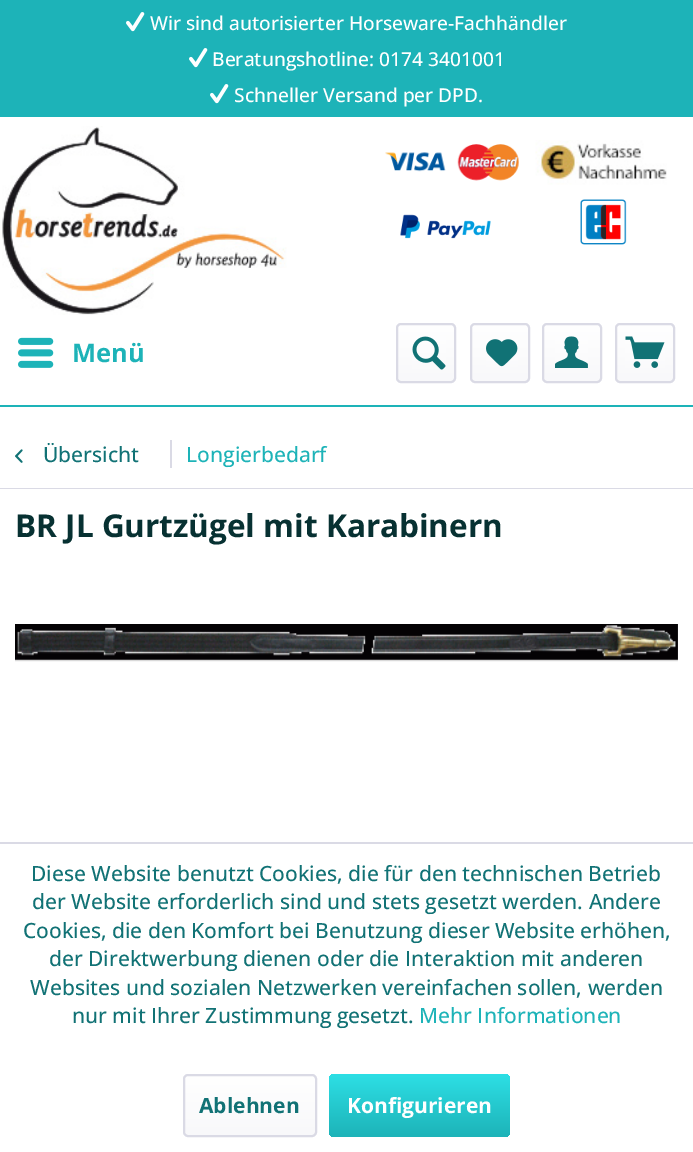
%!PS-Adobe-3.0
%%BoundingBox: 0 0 693 1152
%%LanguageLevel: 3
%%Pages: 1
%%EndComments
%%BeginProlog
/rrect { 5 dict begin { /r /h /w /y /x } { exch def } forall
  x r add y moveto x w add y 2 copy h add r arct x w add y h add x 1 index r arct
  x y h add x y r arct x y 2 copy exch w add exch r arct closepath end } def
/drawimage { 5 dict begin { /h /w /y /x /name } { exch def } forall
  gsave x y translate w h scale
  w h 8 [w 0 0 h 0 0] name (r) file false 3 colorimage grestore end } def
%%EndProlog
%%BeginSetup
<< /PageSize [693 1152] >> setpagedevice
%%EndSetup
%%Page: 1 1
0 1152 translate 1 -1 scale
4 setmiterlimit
1 setgray
0 0 693 1152 rectfill
0.114 0.702 0.722 setrgbcolor
0 0 693 117 rectfill
(images/1.raw) 126 12 19 20 drawimage
(images/1.raw) 189 48 19 20 drawimage
(images/1.raw) 210 84 19 20 drawimage
0 405 693 2 rectfill
(images/2.raw) 2 126 285 189 drawimage
(images/3.raw) 385 144 134 37 drawimage
(images/4.raw) 535 140 132 45 drawimage
(images/5.raw) 400 214 91 25 drawimage
(images/6.raw) 580 199 47 46 drawimage
(images/7.raw) 18 337 36 31 drawimage
gsave 398 324 57 57 3 rrect clip newpath
<< /ShadingType 2 /ColorSpace /DeviceRGB /Coords [426 324 426 381] /Extend [true true] /Function << /FunctionType 2 /Domain [0 1] /C0 [1 1 1] /C1 [0.973 0.973 0.98] /N 1 >> >> shfill grestore
0.855 0.855 0.898 setrgbcolor
2 setlinewidth
397 324 58 58 4 rrect stroke
(images/8.raw) 412 336 34 34 drawimage
gsave 471 324 57 57 3 rrect clip newpath
<< /ShadingType 2 /ColorSpace /DeviceRGB /Coords [500 324 500 381] /Extend [true true] /Function << /FunctionType 2 /Domain [0 1] /C0 [1 1 1] /C1 [0.973 0.973 0.98] /N 1 >> >> shfill grestore
471 324 58 58 4 rrect stroke
(images/9.raw) 486 339 32 28 drawimage
gsave 543 324 57 57 3 rrect clip newpath
<< /ShadingType 2 /ColorSpace /DeviceRGB /Coords [572 324 572 381] /Extend [true true] /Function << /FunctionType 2 /Domain [0 1] /C0 [1 1 1] /C1 [0.973 0.973 0.98] /N 1 >> >> shfill grestore
543 324 58 58 4 rrect stroke
(images/10.raw) 555 336 33 32 drawimage
gsave 617 324 57 57 3 rrect clip newpath
<< /ShadingType 2 /ColorSpace /DeviceRGB /Coords [645 324 645 381] /Extend [true true] /Function << /FunctionType 2 /Domain [0 1] /C0 [1 1 1] /C1 [0.973 0.973 0.98] /N 1 >> >> shfill grestore
616 324 58 58 4 rrect stroke
(images/11.raw) 625 336 40 32 drawimage
0 488 693 1 rectfill
(images/12.raw) 15 449 8 14 drawimage
170 440 2 28 rectfill
(images/13.raw) 15 624 663 38 drawimage
0 842 693 2 rectfill
gsave 185 1076 130 60 3 rrect clip newpath
<< /ShadingType 2 /ColorSpace /DeviceRGB /Coords [250 1076 250 1136] /Extend [true true] /Function << /FunctionType 2 /Domain [0 1] /C0 [1 1 1] /C1 [0.973 0.973 0.98] /N 1 >> >> shfill grestore
184 1075 132 61 4 rrect stroke
gsave 329 1074 181 63 5 rrect clip newpath
<< /ShadingType 2 /ColorSpace /DeviceRGB /Coords [419 1074 419 1137] /Extend [true true] /Function << /FunctionType 2 /Domain [0 1] /C0 [0.176 0.875 0.898] /C1 [0.114 0.702 0.722] /N 1 >> >> shfill grestore
/OpenSans-Medium [19.2 0 0 -19.2 0 0] selectfont
1 setgray
150 30 moveto (Wir sind autorisierter Horseware-Fachhändler) show
212 66 moveto (Beratungshotline: 0174 3401001) show
234 102 moveto (Schneller Versand per DPD.) show
/OpenSans-Bold [25.5 0 0 -25.5 0 0] selectfont
0.114 0.702 0.722 setrgbcolor
72 362 moveto (Menü) show
/OpenSans-Medium [21 0 0 -21 0 0] selectfont
0.067 0.447 0.459 setrgbcolor
43 462 moveto (Übersicht) show
0.114 0.702 0.722 setrgbcolor
186 462 moveto (Longierbedarf) show
/OpenSans-Bold [31.5 0 0 -31.5 0 0] selectfont
0.027 0.192 0.196 setrgbcolor
15 537 moveto (BR JL Gurtzügel mit Karabinern) show
/OpenSans-Medium [21 0 0 -21 0 0] selectfont
0.067 0.447 0.459 setrgbcolor
31 881 moveto (Diese Website benutzt Cookies, die für den technischen Betrieb) show
32 909 moveto (der Website erforderlich sind und stets gesetzt werden. Andere) show
23 938 moveto (Cookies, die den Komfort bei Benutzung dieser Website erhöhen,) show
49 966 moveto (der Direktwerbung dienen oder die Interaktion mit anderen) show
30 995 moveto (Websites und sozialen Netzwerken vereinfachen sollen, werden) show
72 1023 moveto (nur mit Ihrer Zustimmung gesetzt.) show
0.114 0.702 0.722 setrgbcolor
419 1023 moveto (Mehr Informationen) show
/OpenSans-Bold [21 0 0 -21 0 0] selectfont
0.067 0.447 0.459 setrgbcolor
199 1113 moveto (Ablehnen) show
1 setgray
347 1113 moveto (Konfigurieren) show
showpage
%%EOF
